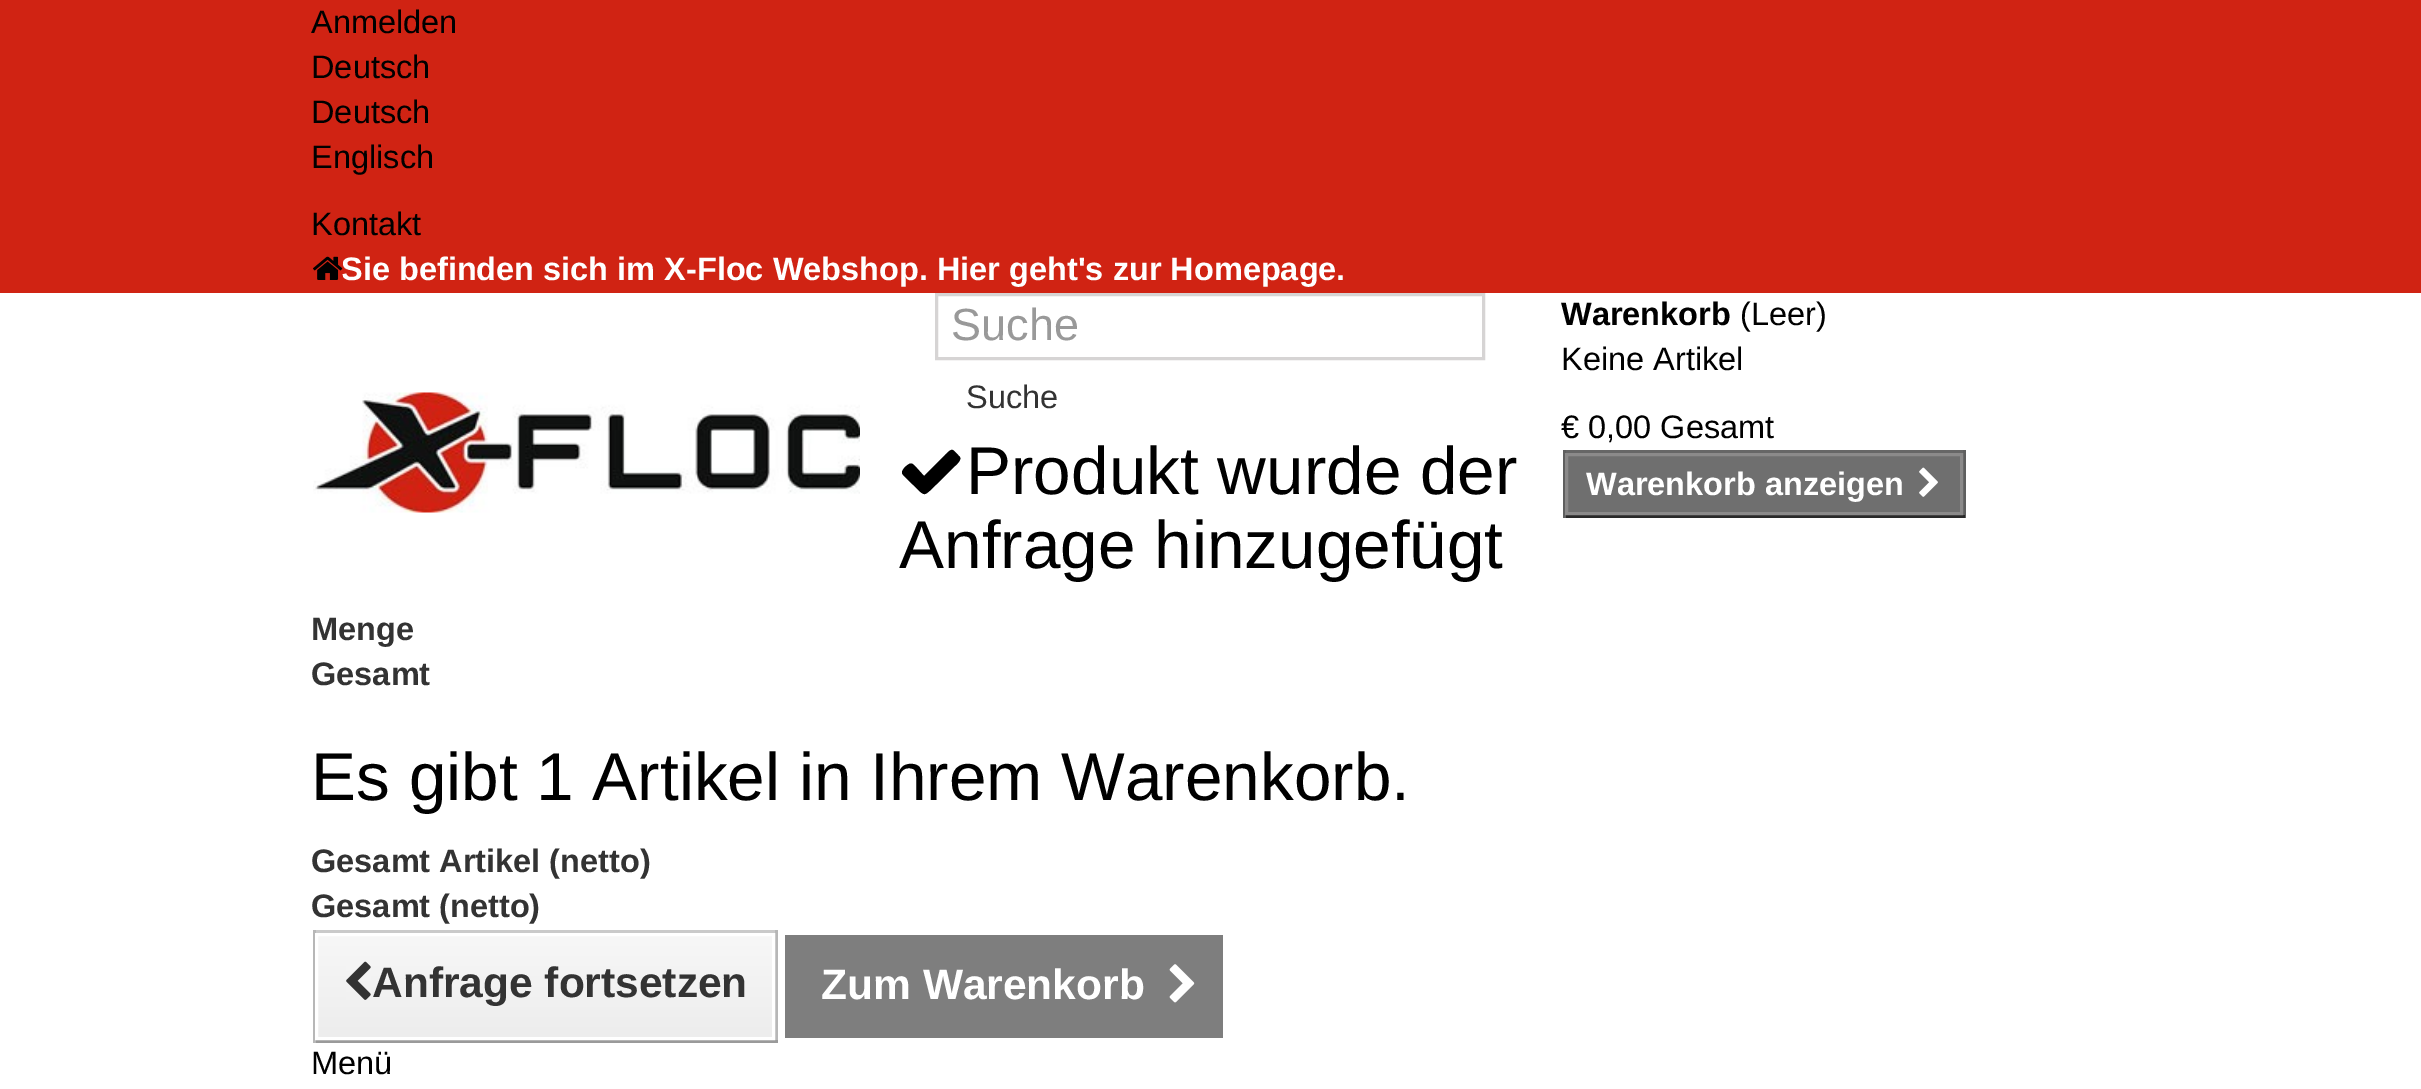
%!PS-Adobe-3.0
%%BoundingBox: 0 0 2421 1089
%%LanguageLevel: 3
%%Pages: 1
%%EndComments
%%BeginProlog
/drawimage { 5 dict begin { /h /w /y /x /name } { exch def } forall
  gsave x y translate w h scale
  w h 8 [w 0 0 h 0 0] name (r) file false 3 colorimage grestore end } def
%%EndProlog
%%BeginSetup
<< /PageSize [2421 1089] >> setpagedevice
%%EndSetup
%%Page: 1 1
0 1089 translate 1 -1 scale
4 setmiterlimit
1 setgray
0 0 2421 1089 rectfill
0.816 0.137 0.075 setrgbcolor
0 0 2421 293 rectfill
0.839 0.831 0.831 setrgbcolor
3 setlinewidth
936.5 294.5 547 64 rectstroke
0.435 setgray
1568 456 392 56 rectfill
0.4 setgray
1563 450 402 3 rectfill
0.373 setgray
1963 450 3 68 rectfill
0.161 setgray
1563 515 402 3 rectfill
0.373 setgray
1563 450 3 68 rectfill
0.545 0.541 0.541 setrgbcolor
1566.5 454.5 395 59 rectstroke
(images/2.raw) 1919 467 19 30 drawimage
(images/3.raw) 313 392 547 121 drawimage
0 setgray
newpath 959 456 moveto 963 459 957 464 955 466 curveto 937 484 lineto 935 485 927 495 924 494 curveto 921 494 914 485 912 484 curveto 905 477 lineto 901 473 901 472 905 467 curveto 910 463 911 462 915 466 curveto 924 476 lineto 945 455 lineto 953 447 952 449 959 456 curveto closepath fill
0.792 setgray
313 930 465 3 rectfill
0.718 setgray
775 930 3 113 rectfill
0.604 setgray
313 1040 465 3 rectfill
0.718 setgray
313 930 3 113 rectfill
gsave newpath 318 936 moveto 772 936 lineto 772 1037 lineto 318 1037 lineto closepath clip newpath
<< /ShadingType 2 /ColorSpace /DeviceRGB /Coords [545 935 545 1038] /Extend [true true] /Function << /FunctionType 2 /Domain [0 1] /C0 [0.969 0.969 0.969] /C1 [0.929 0.929 0.929] /N 1 >> >> shfill grestore
1 setgray
316.5 934.5 457 104 rectstroke
(images/4.raw) 346 961 25 39 drawimage
0.494 setgray
785 935 438 103 rectfill
(images/5.raw) 1169 964 26 39 drawimage
/LiberationSans-Regular [32.5 0 0 -32.5 0 0] selectfont
0 setgray
311 33 moveto (Anmelden) show
311 78 moveto (Deutsch) show
311 123 moveto (Deutsch) show
311 168 moveto (Englisch) show
311 235 moveto (Kontakt) show
/LiberationSans-Bold [32.5 0 0 -32.5 0 0] selectfont
1 setgray
341 280 moveto (Sie befinden sich im X-Floc Webshop. Hier geht's zur Homepage.) show
(images/1.raw) 313 256 30 24 drawimage
/LiberationSans-Regular [45 0 0 -45 0 0] selectfont
0.6 setgray
951 340 moveto (Suche) show
/LiberationSans-Regular [32.5 0 0 -32.5 0 0] selectfont
0.2 setgray
966 408 moveto (Suche) show
/LiberationSans-Bold [32.5 0 0 -32.5 0 0] selectfont
0 setgray
1561 325 moveto (Warenkorb) show
/LiberationSans-Regular [32.5 0 0 -32.5 0 0] selectfont
1740 325 moveto (\(Leer\)) show
1561 370 moveto (Keine Artikel) show
1561 438 moveto (€ 0,00 Gesamt) show
/LiberationSans-Bold [32.5 0 0 -32.5 0 0] selectfont
1 setgray
1586 495 moveto (Warenkorb anzeigen) show
/LiberationSans-Regular [67.5 0 0 -67.5 0 0] selectfont
0 setgray
966 494 moveto (Produkt wurde der) show
899 568 moveto (Anfrage hinzugefügt) show
/LiberationSans-Bold [32.5 0 0 -32.5 0 0] selectfont
0.2 setgray
311 640 moveto (Menge) show
311 685 moveto (Gesamt) show
/LiberationSans-Regular [67.5 0 0 -67.5 0 0] selectfont
0 setgray
311 800 moveto (Es gibt 1 Artikel in Ihrem Warenkorb.) show
/LiberationSans-Bold [32.5 0 0 -32.5 0 0] selectfont
0.2 setgray
311 872 moveto (Gesamt Artikel \(netto\)) show
311 917 moveto (Gesamt \(netto\)) show
/LiberationSans-Bold [42.5 0 0 -42.5 0 0] selectfont
372 997 moveto (Anfrage fortsetzen) show
1 setgray
821 999 moveto (Zum Warenkorb) show
/LiberationSans-Regular [32.5 0 0 -32.5 0 0] selectfont
0 setgray
311 1074 moveto (Menü) show
showpage
%%EOF
